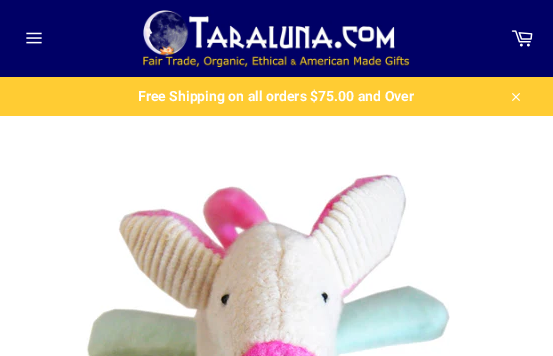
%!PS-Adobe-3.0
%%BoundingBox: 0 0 553 356
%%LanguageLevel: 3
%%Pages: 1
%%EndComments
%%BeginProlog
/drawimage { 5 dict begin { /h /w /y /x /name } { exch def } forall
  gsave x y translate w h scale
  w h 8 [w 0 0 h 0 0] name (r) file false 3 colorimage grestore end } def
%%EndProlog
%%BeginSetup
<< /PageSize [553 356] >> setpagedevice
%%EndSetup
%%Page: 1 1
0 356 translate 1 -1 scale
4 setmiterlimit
0 0 0.4 setrgbcolor
0 0 553 356 rectfill
(images/1.raw) 26 32 16 12 drawimage
(images/2.raw) 143 10 267 57 drawimage
(images/3.raw) 511 30 22 17 drawimage
1 0.8 0.2 setrgbcolor
0 77 553 39 rectfill
(images/4.raw) 512 93 8 8 drawimage
1 setgray
0 116 553 240 rectfill
(images/5.raw) 86 173 364 183 drawimage
/Roboto-Bold [14 0 0 -14 0 0] selectfont
138 101 moveto (Free Shipping on all orders $75.00 and Over) show
showpage
%%EOF
